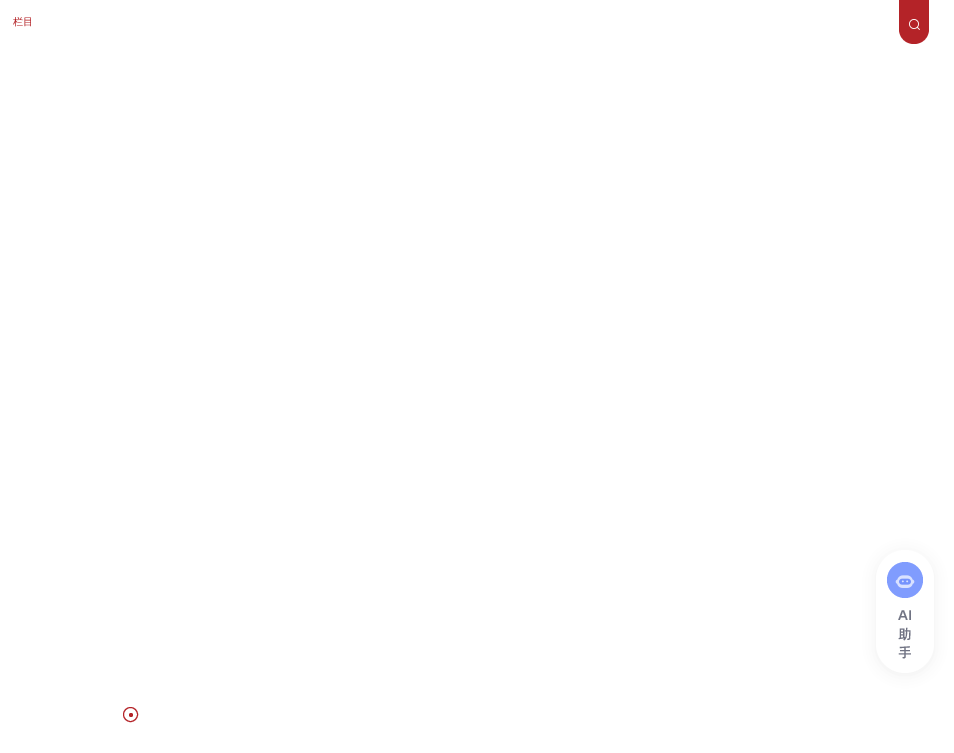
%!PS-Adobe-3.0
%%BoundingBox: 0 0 954 753
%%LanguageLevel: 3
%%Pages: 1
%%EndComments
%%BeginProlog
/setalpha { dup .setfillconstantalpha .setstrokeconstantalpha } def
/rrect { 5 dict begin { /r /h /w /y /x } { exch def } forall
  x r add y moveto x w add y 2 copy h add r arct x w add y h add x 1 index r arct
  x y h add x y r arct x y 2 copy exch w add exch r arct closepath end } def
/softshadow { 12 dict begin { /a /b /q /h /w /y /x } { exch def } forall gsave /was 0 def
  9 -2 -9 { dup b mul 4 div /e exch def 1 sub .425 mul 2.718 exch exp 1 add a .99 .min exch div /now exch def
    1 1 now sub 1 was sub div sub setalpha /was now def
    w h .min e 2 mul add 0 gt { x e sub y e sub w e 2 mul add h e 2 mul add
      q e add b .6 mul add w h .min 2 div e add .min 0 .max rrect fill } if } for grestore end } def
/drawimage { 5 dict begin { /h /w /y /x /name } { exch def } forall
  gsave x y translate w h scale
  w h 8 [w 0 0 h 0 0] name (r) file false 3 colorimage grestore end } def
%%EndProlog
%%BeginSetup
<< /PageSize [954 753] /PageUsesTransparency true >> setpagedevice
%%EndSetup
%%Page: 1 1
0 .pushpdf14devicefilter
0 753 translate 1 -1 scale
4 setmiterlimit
1 setgray
0 0 954 753 rectfill
0.706 0.137 0.157 setrgbcolor
newpath 899 0 moveto 929 0 lineto 929 29 lineto 929 37.5 922.5 44 914 44 curveto 905.5 44 899 37.5 899 29 curveto closepath fill
(images/1.raw) 909 19 11 11 drawimage
0.302 setgray
876 552 58 123 29 6 0.07 softshadow
1 setgray
876 550 58 123 29 rrect fill
0.502 0.612 0.996 setrgbcolor
newpath 905 580 18 0 360 arc closepath fill
(images/2.raw) 895 575 20 13 drawimage
0.706 0.137 0.157 setrgbcolor
newpath 130.5 714.5 7 0 360 arc closepath stroke
newpath 131 715 2 0 360 arc closepath fill
/WenQuanYiZenHei-Medium [10 0 0 -10 0 0] selectfont
13 25 moveto (栏目) show
/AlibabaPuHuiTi-Medium [14 0 0 -14 0 0] selectfont
0.439 0.451 0.514 setrgbcolor
898 620 moveto (AI) show
898 639 moveto (助) show
898 657 moveto (手) show
.poppdf14devicefilter showpage
%%EOF
